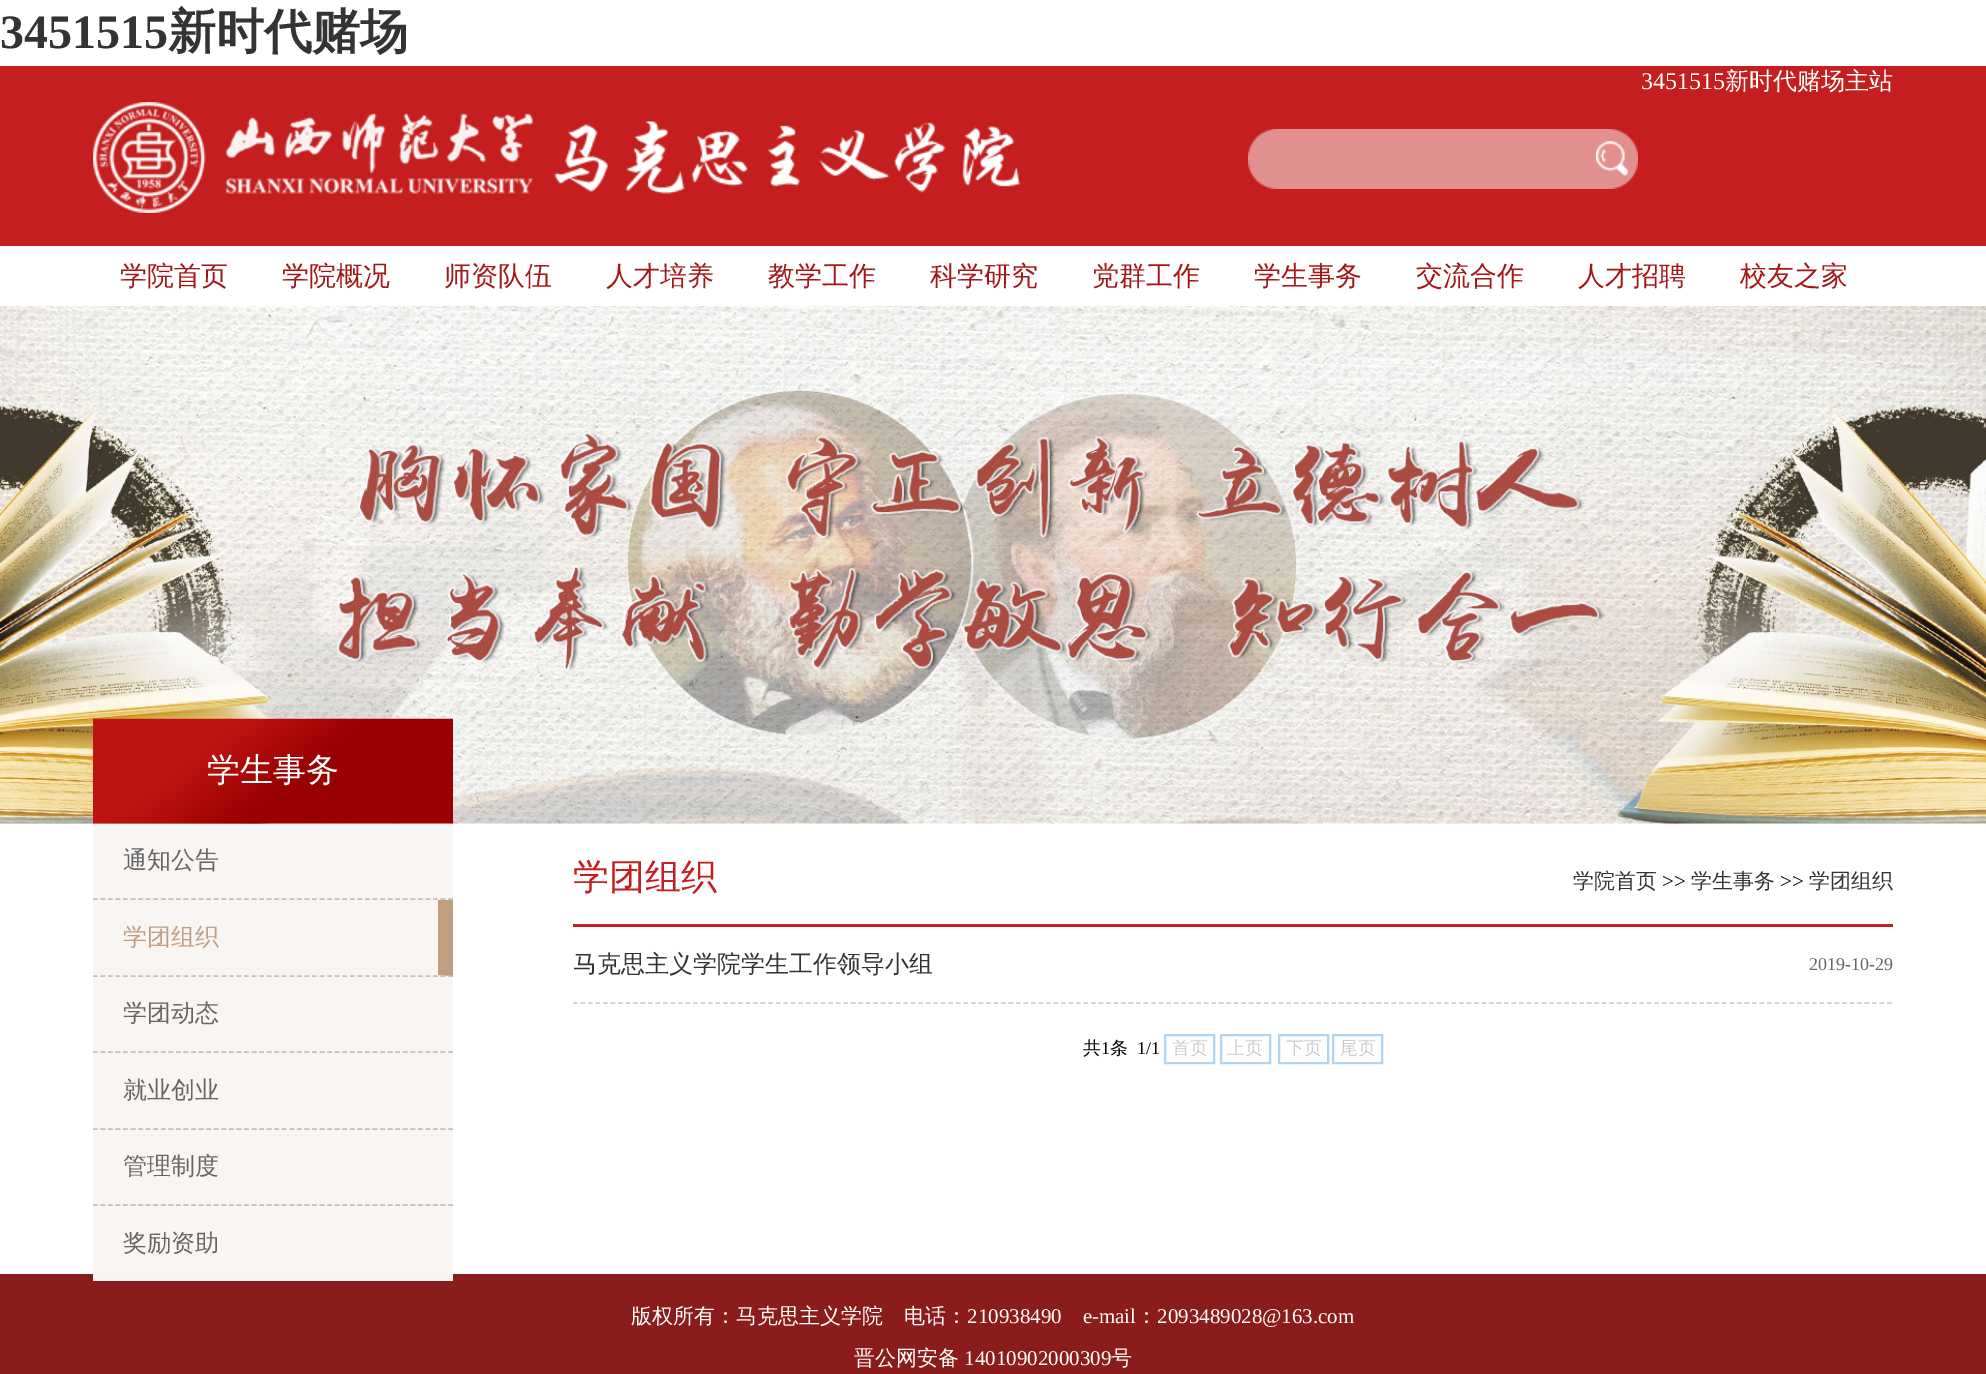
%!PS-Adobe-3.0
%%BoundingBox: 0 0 1986 1374
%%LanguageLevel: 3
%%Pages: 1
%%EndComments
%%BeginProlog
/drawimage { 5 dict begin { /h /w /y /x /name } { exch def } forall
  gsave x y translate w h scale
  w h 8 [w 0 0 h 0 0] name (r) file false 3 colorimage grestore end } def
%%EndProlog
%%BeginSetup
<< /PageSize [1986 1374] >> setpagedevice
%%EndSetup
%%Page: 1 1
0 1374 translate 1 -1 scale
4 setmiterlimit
1 setgray
0 0 1986 1374 rectfill
0.769 0.118 0.118 setrgbcolor
0 66 1986 180 rectfill
(images/1.raw) 93 102 927 111 drawimage
(images/2.raw) 1248 129 390 60 drawimage
(images/3.raw) 1596 141 32 35 drawimage
(images/4.raw) 0 306 1986 518 drawimage
(images/5.raw) 93 718 360 106 drawimage
0.541 0.11 0.11 setrgbcolor
0 1274 1986 100 rectfill
0.973 0.961 0.949 setrgbcolor
93 824 360 457 rectfill
0.749 setgray
1.5 setlinewidth
[4.5 3.06] 0 setdash
newpath 93 899 moveto 453 899 lineto stroke
0.753 0.624 0.502 setrgbcolor
newpath 453 900 moveto 453 976 lineto 438 975 lineto 438 900 lineto closepath fill
0.749 setgray
newpath 93 976 moveto 453 976 lineto stroke
newpath 93 1052 moveto 453 1052 lineto stroke
newpath 93 1129 moveto 453 1129 lineto stroke
newpath 93 1205 moveto 453 1205 lineto stroke
0.769 0.118 0.118 setrgbcolor
573 924 1320 3 rectfill
0.8 setgray
[4.5 3.01] 0 setdash
newpath 573 1003 moveto 1893 1003 lineto stroke
0.686 0.835 0.961 setrgbcolor
2 setlinewidth
[] 0 setdash
1165 1035 49 28 rectstroke
1221 1035 49 28 rectstroke
1279 1035 49 28 rectstroke
1333 1035 49 28 rectstroke
/LiberationSerif-Bold [48 0 0 -48 0 0] selectfont
0.2 setgray
0 48 moveto (3451515) show
/WenQuanYiZenHei-Bold [48 0 0 -48 0 0] selectfont
168 48 moveto (新时代赌场) show
/LiberationSerif-Regular [24 0 0 -24 0 0] selectfont
1 setgray
1641 89 moveto (3451515) show
/WenQuanYiZenHei-Medium [24 0 0 -24 0 0] selectfont
1725 89 moveto (新时代赌场主站) show
/WenQuanYiZenHei-Medium [27 0 0 -27 0 0] selectfont
0.647 0.086 0.086 setrgbcolor
120 285 moveto (学院首页) show
282 285 moveto (学院概况) show
444 285 moveto (师资队伍) show
606 285 moveto (人才培养) show
768 285 moveto (教学工作) show
930 285 moveto (科学研究) show
1092 285 moveto (党群工作) show
1254 285 moveto (学生事务) show
1416 285 moveto (交流合作) show
1578 285 moveto (人才招聘) show
1740 285 moveto (校友之家) show
/WenQuanYiZenHei-Medium [33 0 0 -33 0 0] selectfont
1 setgray
207 781 moveto (学生事务) show
/WenQuanYiZenHei-Medium [24 0 0 -24 0 0] selectfont
0.4 setgray
123 868 moveto (通知公告) show
0.753 0.624 0.502 setrgbcolor
123 945 moveto (学团组织) show
0.4 setgray
123 1021 moveto (学团动态) show
123 1098 moveto (就业创业) show
123 1174 moveto (管理制度) show
123 1251 moveto (奖励资助) show
/WenQuanYiZenHei-Medium [36 0 0 -36 0 0] selectfont
0.769 0.118 0.118 setrgbcolor
573 889 moveto (学团组织) show
/WenQuanYiZenHei-Medium [21 0 0 -21 0 0] selectfont
0.2 setgray
1573 888 moveto (学院首页) show
/LiberationSerif-Regular [21 0 0 -21 0 0] selectfont
0 setgray
1662 888 moveto (>>) show
/WenQuanYiZenHei-Medium [21 0 0 -21 0 0] selectfont
0.2 setgray
1691 888 moveto (学生事务) show
/LiberationSerif-Regular [21 0 0 -21 0 0] selectfont
0 setgray
1780 888 moveto (>>) show
/WenQuanYiZenHei-Medium [21 0 0 -21 0 0] selectfont
0.2 setgray
1809 888 moveto (学团组织) show
/WenQuanYiZenHei-Medium [24 0 0 -24 0 0] selectfont
573 972 moveto (马克思主义学院学生工作领导小组) show
/LiberationSerif-Regular [18 0 0 -18 0 0] selectfont
0.4 setgray
1809 970 moveto (2019-10-29) show
/WenQuanYiZenHei-Medium [18 0 0 -18 0 0] selectfont
0 setgray
1083 1054 moveto (共) show
/LiberationSerif-Regular [18 0 0 -18 0 0] selectfont
1101 1054 moveto (1) show
/WenQuanYiZenHei-Medium [18 0 0 -18 0 0] selectfont
1110 1054 moveto (条) show
/LiberationSerif-Regular [18 0 0 -18 0 0] selectfont
1137 1054 moveto (1/1) show
/WenQuanYiZenHei-Medium [18 0 0 -18 0 0] selectfont
0.8 setgray
1172 1054 moveto (首页) show
1227 1054 moveto (上页) show
1286 1054 moveto (下页) show
1340 1054 moveto (尾页) show
/WenQuanYiZenHei-Medium [21 0 0 -21 0 0] selectfont
1 setgray
631 1323 moveto (版权所有：马克思主义学院) show
904 1323 moveto (电话：) show
/LiberationSerif-Regular [21 0 0 -21 0 0] selectfont
967 1323 moveto (210938490    e-mail) show
/WenQuanYiZenHei-Medium [21 0 0 -21 0 0] selectfont
1136 1323 moveto (：) show
/LiberationSerif-Regular [21 0 0 -21 0 0] selectfont
1157 1323 moveto (2093489028@163.com) show
/WenQuanYiZenHei-Medium [21 0 0 -21 0 0] selectfont
854 1365 moveto (晋公网安备) show
/LiberationSerif-Regular [21 0 0 -21 0 0] selectfont
964 1365 moveto (14010902000309) show
/WenQuanYiZenHei-Medium [21 0 0 -21 0 0] selectfont
1111 1365 moveto (号) show
showpage
%%EOF
